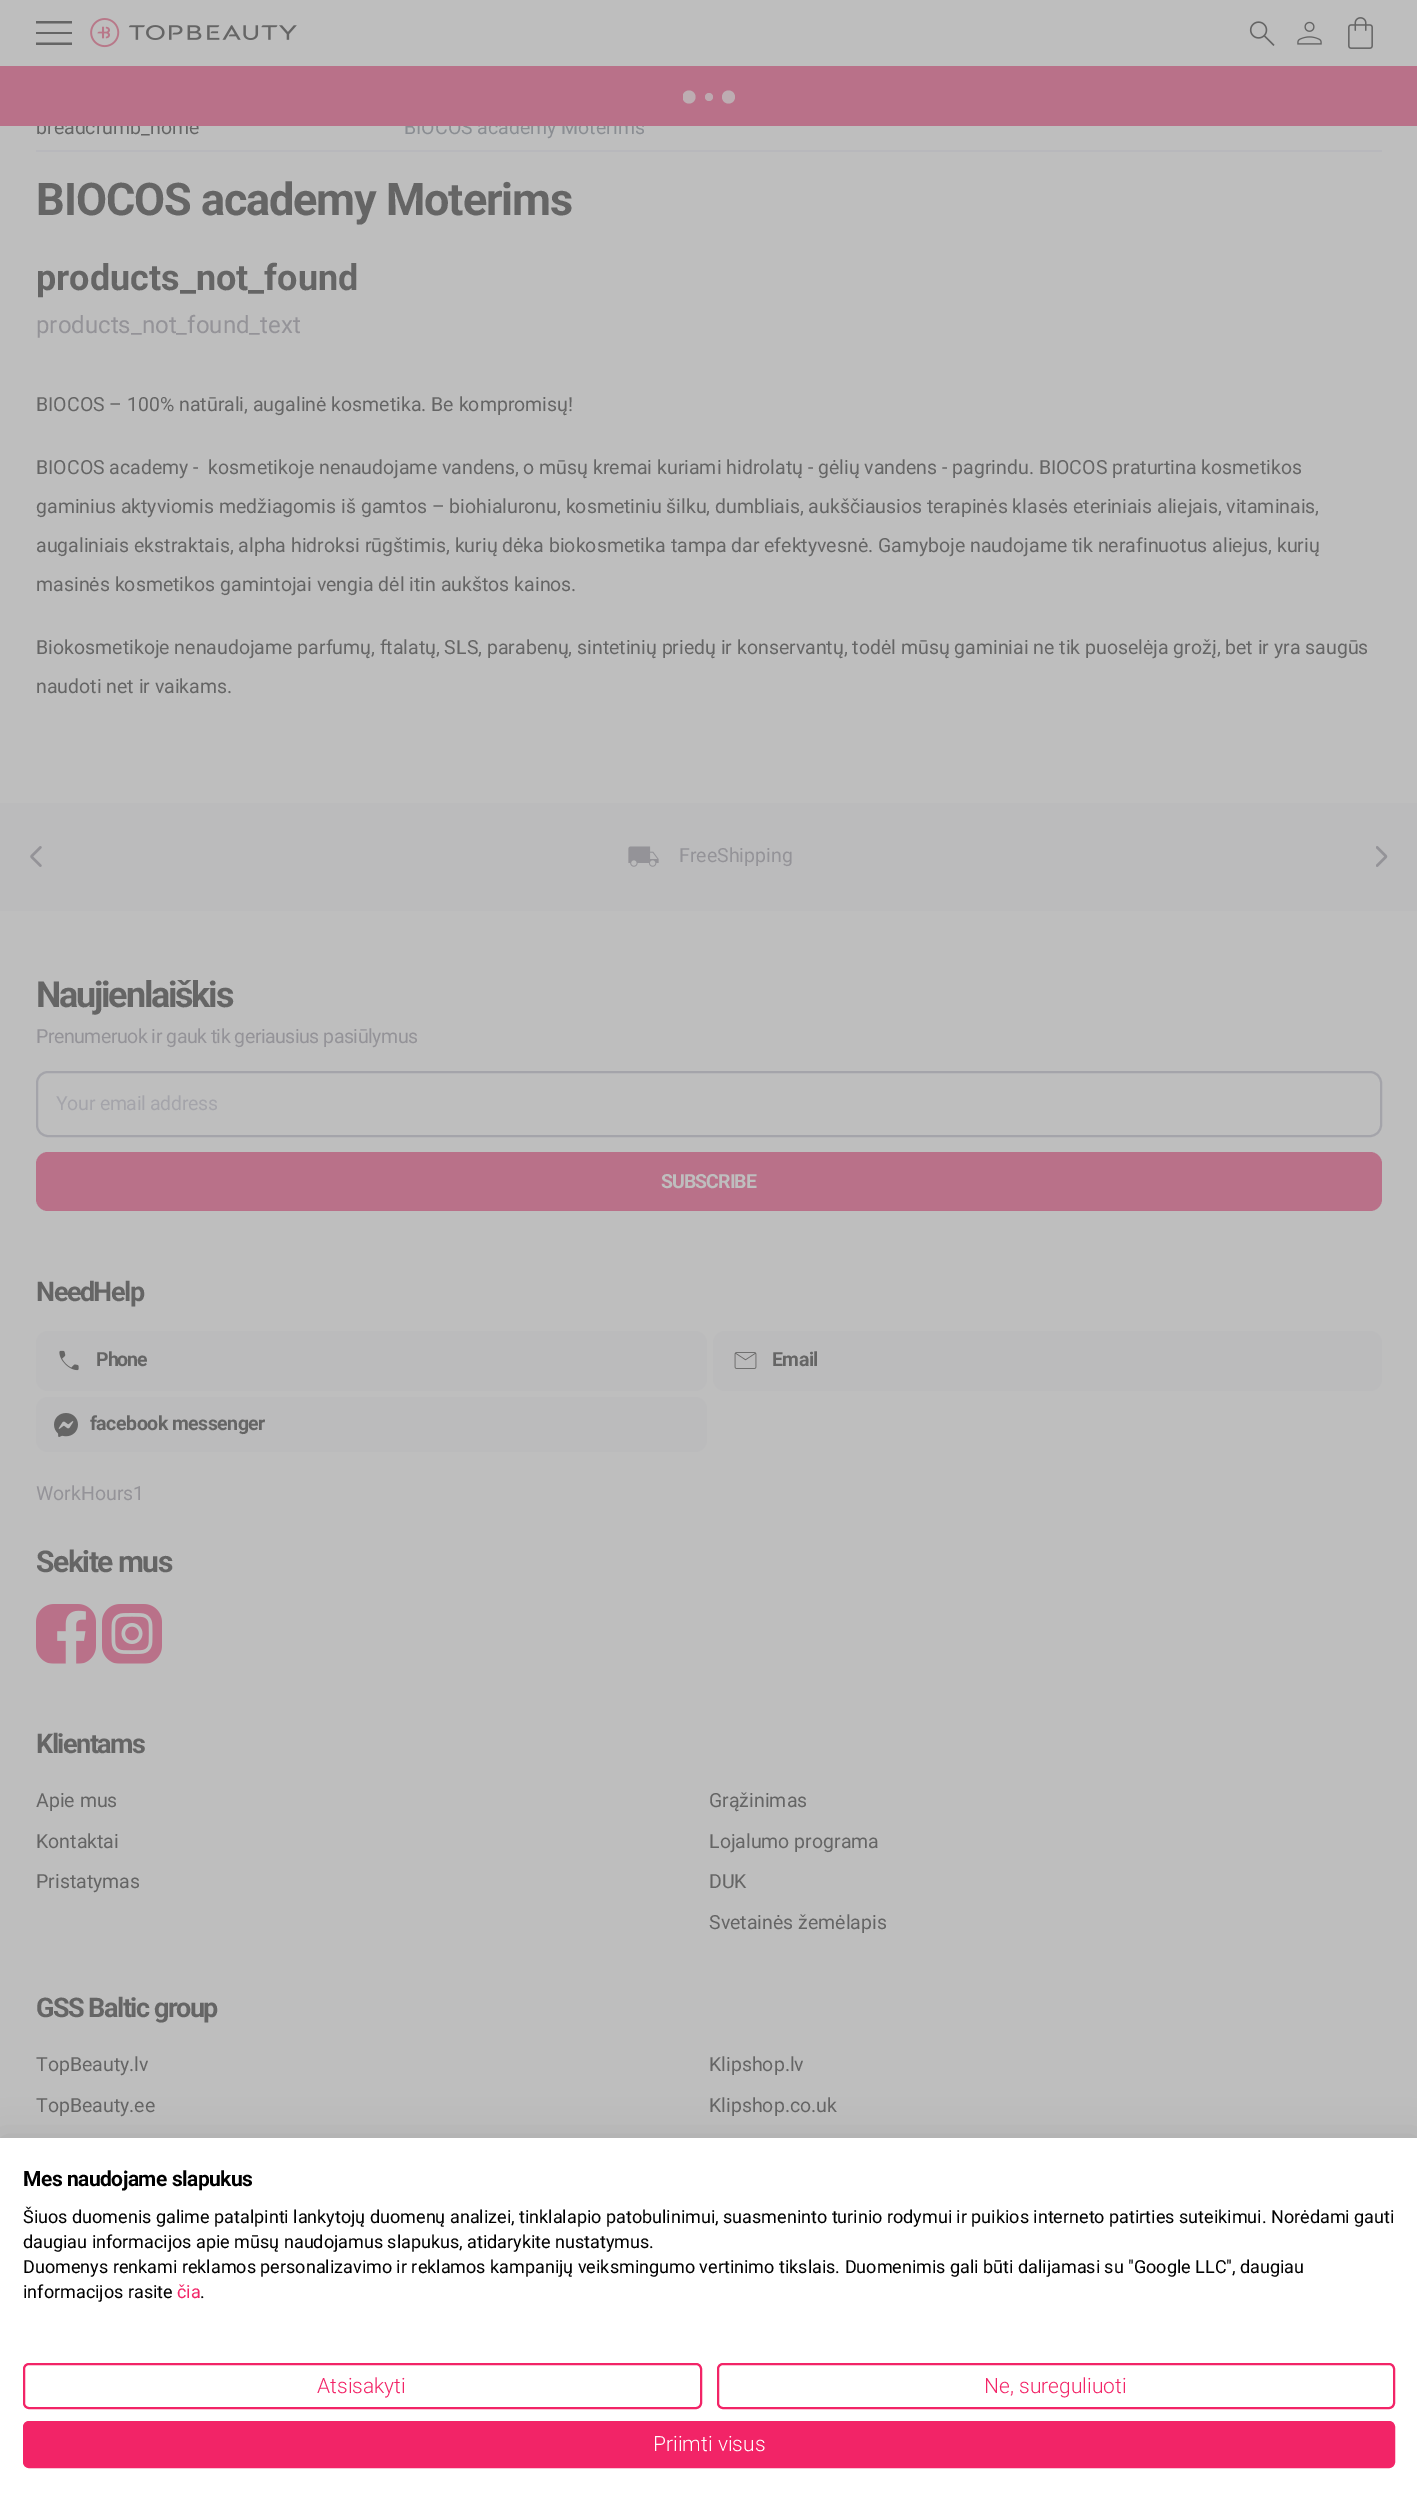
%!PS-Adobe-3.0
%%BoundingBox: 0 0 1417 2508
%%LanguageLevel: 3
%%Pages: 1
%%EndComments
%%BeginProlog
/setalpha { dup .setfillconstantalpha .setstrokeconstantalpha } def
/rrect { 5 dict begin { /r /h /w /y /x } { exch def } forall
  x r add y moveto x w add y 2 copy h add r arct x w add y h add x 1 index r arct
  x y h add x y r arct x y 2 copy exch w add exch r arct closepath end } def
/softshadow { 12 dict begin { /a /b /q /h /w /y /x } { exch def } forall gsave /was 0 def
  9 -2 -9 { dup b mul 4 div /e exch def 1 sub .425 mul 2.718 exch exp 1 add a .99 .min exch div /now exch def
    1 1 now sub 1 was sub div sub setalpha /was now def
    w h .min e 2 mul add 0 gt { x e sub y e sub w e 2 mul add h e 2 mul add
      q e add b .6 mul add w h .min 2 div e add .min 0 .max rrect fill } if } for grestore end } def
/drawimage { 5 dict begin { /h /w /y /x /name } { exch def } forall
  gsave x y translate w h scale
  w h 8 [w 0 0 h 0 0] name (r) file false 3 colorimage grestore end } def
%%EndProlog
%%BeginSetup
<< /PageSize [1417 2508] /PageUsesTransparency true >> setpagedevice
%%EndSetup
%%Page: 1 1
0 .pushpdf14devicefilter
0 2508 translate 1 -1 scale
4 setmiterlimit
0.745 setgray
0 0 1417 2508 rectfill
0.396 setgray
newpath 36 45 moveto 36 42.5 lineto 72 42.5 lineto 72 45 lineto closepath 36 34 moveto 36 32 lineto 72 32 lineto 72 34 lineto closepath 36 23.5 moveto 36 21 lineto 72 21 lineto 72 23.5 lineto closepath fill
(images/1.raw) 90 18 207 30 drawimage
(images/2.raw) 1249 21 26 25 drawimage
(images/3.raw) 1297 21 25 24 drawimage
(images/4.raw) 1348 17 25 32 drawimage
0.722 0.722 0.737 setrgbcolor
36 150 1346 2 rectfill
0.733 0.733 0.737 setrgbcolor
0 803 1417 108 rectfill
(images/5.raw) 30 846 12 21 drawimage
(images/6.raw) 628 846 31 21 drawimage
(images/7.raw) 1376 846 12 21 drawimage
0.643 0.643 0.667 setrgbcolor
2 setlinewidth
37 1072 1344 64 11 rrect stroke
0.725 0.443 0.537 setrgbcolor
36 1152 1346 59 12 rrect fill
0.733 0.733 0.737 setrgbcolor
36 1331 671 60 12 rrect fill
(images/8.raw) 59 1350 20 21 drawimage
713 1331 669 60 12 rrect fill
(images/9.raw) 734 1352 23 17 drawimage
36 1397 671 55 12 rrect fill
(images/10.raw) 54 1413 24 24 drawimage
(images/11.raw) 36 1604 60 60 drawimage
(images/12.raw) 102 1604 60 60 drawimage
0 setgray
0 2138 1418 370 0 18 0.1 softshadow
1 setgray
0 2138 1417 370 rectfill
0.949 0.141 0.404 setrgbcolor
24 2364 677 44 5 rrect stroke
718 2364 676 44 5 rrect stroke
24 2422 1370 45 5 rrect gsave fill grestore
stroke
/Roboto-Regular [19.5 0 0 -19.5 0 0] selectfont
0.396 setgray
36 134 moveto (breadcrumb_home) show
0.541 0.553 0.573 setrgbcolor
404 134 moveto (BIOCOS academy Moterims) show
0.725 0.443 0.537 setrgbcolor
0 66 1417 60 rectfill
0.741 0.678 0.698 setrgbcolor
newpath 728.5 97 6.5 0 360 arc closepath fill
0.741 0.663 0.69 setrgbcolor
newpath 709 97 4 0 360 arc closepath fill
gsave
683 71 52 52 rectclip
0.741 0.678 0.698 setrgbcolor
newpath 689 97 6.5 0 360 arc closepath fill
grestore
/Roboto-Bold [45 0 0 -45 0 0] selectfont
0.396 setgray
36 215 moveto -1.1 0 (BIOCOS academy Moterims) ashow
/Roboto-Bold [36 0 0 -36 0 0] selectfont
36 290 moveto (products_not_found) show
/Roboto-Regular [24 0 0 -24 0 0] selectfont
0.58 0.576 0.596 setrgbcolor
36 333 moveto (products_not_found_text) show
/Roboto-Regular [19.5 0 0 -19.5 0 0] selectfont
0.396 setgray
36 411 moveto (BIOCOS – 100% natūrali, augalinė kosmetika. Be kompromisų!) show
36 474 moveto (BIOCOS academy -  kosmetikoje nenaudojame vandens, o mūsų kremai kuriami hidrolatų - gėlių vandens - pagrindu. BIOCOS praturtina kosmetikos) show
36 513 moveto (gaminius aktyviomis medžiagomis iš gamtos – biohialuronu, kosmetiniu šilku, dumbliais, aukščiausios terapinės klasės eteriniais aliejais, vitaminais,) show
36 552 moveto (augaliniais ekstraktais, alpha hidroksi rūgštimis, kurių dėka biokosmetika tampa dar efektyvesnė. Gamyboje naudojame tik nerafinuotus aliejus, kurių) show
36 591 moveto (masinės kosmetikos gamintojai vengia dėl itin aukštos kainos.) show
36 654 moveto (Biokosmetikoje nenaudojame parfumų, ftalatų, SLS, parabenų, sintetinių priedų ir konservantų, todėl mūsų gaminiai ne tik puoselėja grožį, bet ir yra saugūs) show
36 693 moveto (naudoti net ir vaikams.) show
0.58 0.576 0.596 setrgbcolor
679 862 moveto (FreeShipping) show
/Roboto-Bold [36 0 0 -36 0 0] selectfont
0.396 setgray
36 1007 moveto -2.25 0 (Naujienlaiškis) ashow
/Roboto-Regular [19.5 0 0 -19.5 0 0] selectfont
0.58 0.576 0.596 setrgbcolor
36 1043 moveto -0.5 0 (Prenumeruok ir gauk tik geriausius pasiūlymus) ashow
0.643 0.643 0.667 setrgbcolor
56 1110 moveto -0.3 0 (Your email address) ashow
/Roboto-Bold [19.5 0 0 -19.5 0 0] selectfont
0.745 setgray
661 1188 moveto -1 0 (SUBSCRIBE) ashow
/Roboto-Bold [27 0 0 -27 0 0] selectfont
0.396 setgray
36 1301 moveto -1.5 0 (NeedHelp) ashow
/Roboto-Bold [19.5 0 0 -19.5 0 0] selectfont
96 1366 moveto -1 0 (Phone) ashow
772 1366 moveto -0.5 0 (Email) ashow
90 1430 moveto -0.5 0 (facebook messenger) ashow
/Roboto-Regular [19.5 0 0 -19.5 0 0] selectfont
0.58 0.576 0.596 setrgbcolor
36 1500 moveto (WorkHours1) show
/Roboto-Bold [30 0 0 -30 0 0] selectfont
0.396 setgray
36 1572 moveto -1.5 0 (Sekite mus) ashow
/Roboto-Bold [27 0 0 -27 0 0] selectfont
36 1753 moveto -1.5 0 (Klientams) ashow
/Roboto-Regular [19.5 0 0 -19.5 0 0] selectfont
36 1807 moveto (Apie mus) show
36 1848 moveto (Kontaktai) show
36 1888 moveto (Pristatymas) show
709 1807 moveto (Grąžinimas) show
709 1848 moveto (Lojalumo programa) show
709 1888 moveto (DUK) show
709 1929 moveto (Svetainės žemėlapis) show
/Roboto-Bold [27 0 0 -27 0 0] selectfont
36 2017 moveto -1.5 0 (GSS Baltic group) ashow
/Roboto-Regular [19.5 0 0 -19.5 0 0] selectfont
36 2071 moveto (TopBeauty.lv) show
36 2112 moveto (TopBeauty.ee) show
709 2071 moveto (Klipshop.lv) show
709 2112 moveto (Klipshop.co.uk) show
/Roboto-Bold [21 0 0 -21 0 0] selectfont
0 setgray
23 2186 moveto -0.5 0 (Mes naudojame slapukus) ashow
/Roboto-Regular [18 0 0 -18 0 0] selectfont
23 2223 moveto (Šiuos duomenis galime patalpinti lankytojų duomenų analizei, tinklalapio patobulinimui, suasmeninto turinio rodymui ir puikios interneto patirties suteikimui. Norėdami gauti) show
23 2248 moveto (daugiau informacijos apie mūsų naudojamus slapukus, atidarykite nustatymus.) show
23 2273 moveto (Duomenys renkami reklamos personalizavimo ir reklamos kampanijų veiksmingumo vertinimo tikslais. Duomenimis gali būti dalijamasi su "Google LLC", daugiau) show
23 2298 moveto (informacijos rasite) show
0.949 0.141 0.404 setrgbcolor
177 2298 moveto (čia) show
0 setgray
200 2298 moveto (.) show
/Roboto-Light [21 0 0 -21 0 0] selectfont
0.949 0.141 0.404 setrgbcolor
317 2393 moveto (Atsisakyti) show
984 2393 moveto (Ne, sureguliuoti) show
1 setgray
653 2451 moveto (Priimti visus) show
.poppdf14devicefilter showpage
%%EOF
